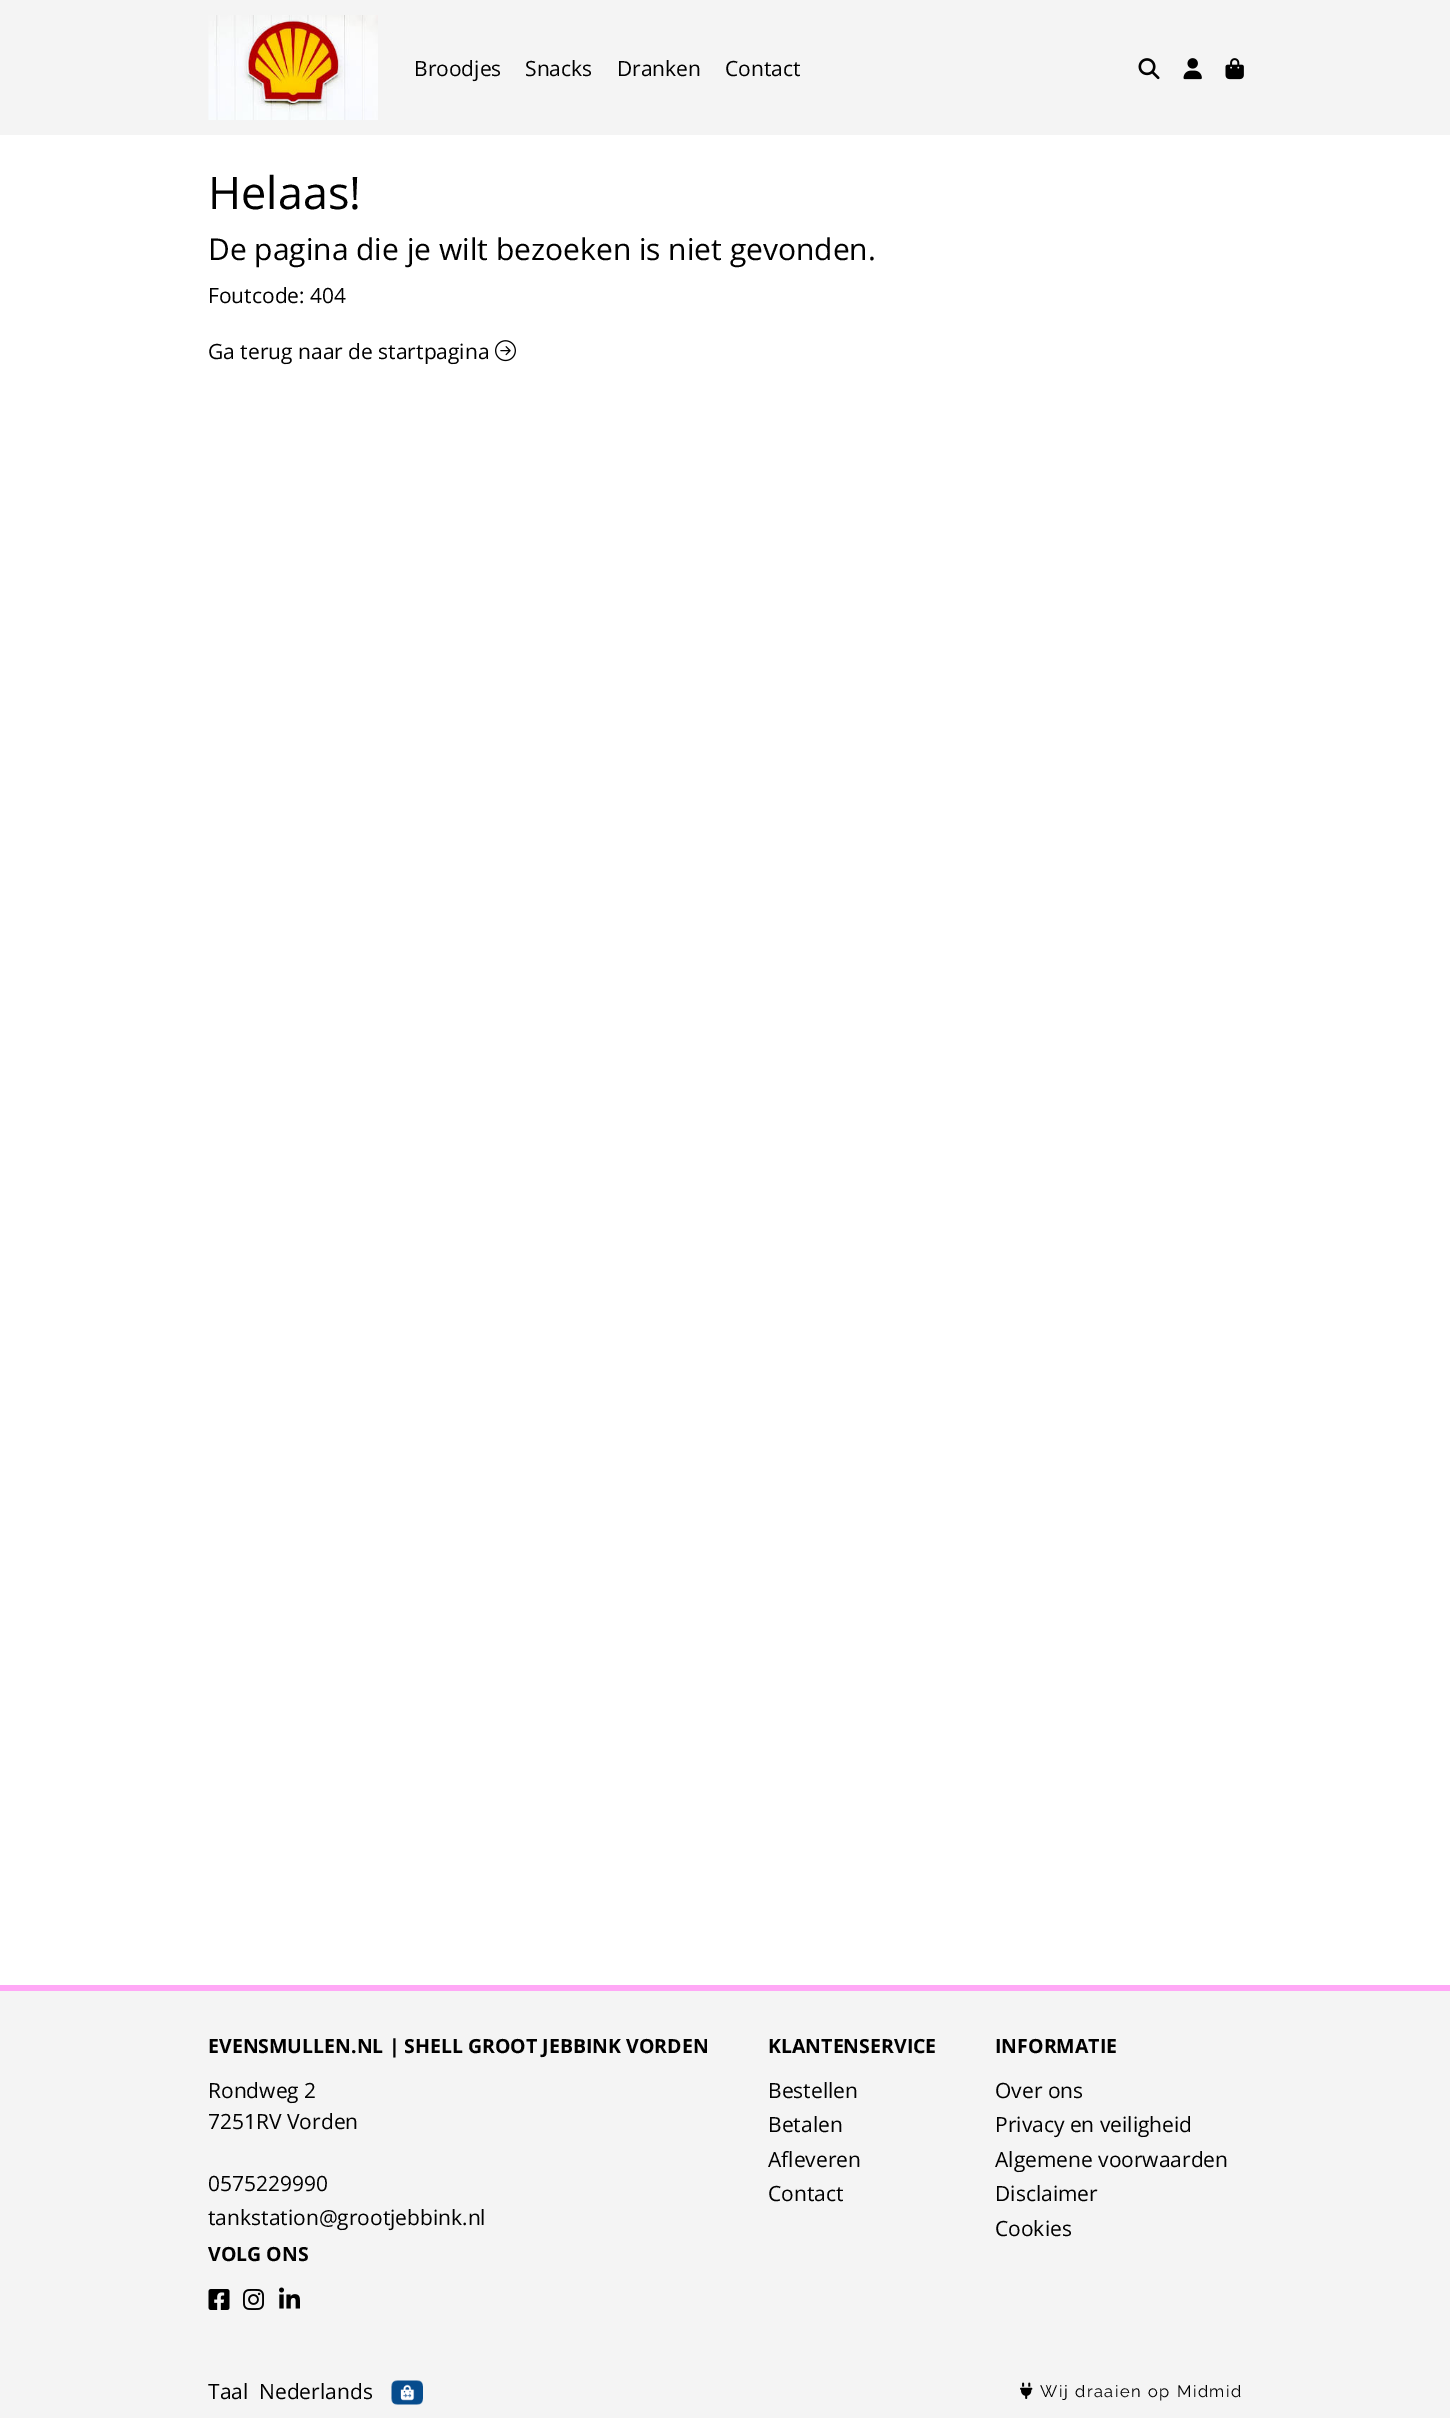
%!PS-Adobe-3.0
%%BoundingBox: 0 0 1450 2418
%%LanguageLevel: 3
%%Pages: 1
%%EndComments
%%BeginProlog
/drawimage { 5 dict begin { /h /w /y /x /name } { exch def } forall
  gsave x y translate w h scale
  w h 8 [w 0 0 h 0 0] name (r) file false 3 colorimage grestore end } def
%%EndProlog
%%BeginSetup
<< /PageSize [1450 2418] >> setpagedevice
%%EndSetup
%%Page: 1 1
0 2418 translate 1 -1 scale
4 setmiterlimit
1 setgray
0 0 1450 2418 rectfill
0.957 setgray
0 0 1450 135 rectfill
(images/1.raw) 208 15 170 105 drawimage
(images/2.raw) 1138 58 22 22 drawimage
(images/3.raw) 1183 58 19 22 drawimage
(images/4.raw) 1225 58 19 22 drawimage
(images/5.raw) 495 340 21 22 drawimage
0 1991 1450 427 rectfill
1 0.659 0.965 setrgbcolor
0 1985 1450 6 rectfill
(images/6.raw) 208 2289 22 21 drawimage
(images/7.raw) 243 2289 21 21 drawimage
(images/8.raw) 279 2287 21 22 drawimage
(images/9.raw) 391 2380 32 25 drawimage
(images/10.raw) 1020 2382 13 17 drawimage
/OpenSans-Regular [21 0 0 -21 0 0] selectfont
0 setgray
414 76 moveto (Broodjes) show
525 76 moveto (Snacks) show
617 76 moveto (Dranken) show
725 76 moveto (Contact) show
/OpenSans-Regular [45 0 0 -45 0 0] selectfont
208 209 moveto (Helaas!) show
/OpenSans-Regular [30 0 0 -30 0 0] selectfont
208 260 moveto (De pagina die je wilt bezoeken is niet gevonden.) show
/OpenSans-Regular [21 0 0 -21 0 0] selectfont
208 303 moveto (Foutcode: 404) show
208 359 moveto (Ga terug naar de startpagina) show
/OpenSans-Bold [19.5 0 0 -19.5 0 0] selectfont
208 2053 moveto (EVENSMULLEN.NL | SHELL GROOT JEBBINK VORDEN) show
/OpenSans-Regular [21 0 0 -21 0 0] selectfont
208 2098 moveto (Rondweg 2) show
208 2129 moveto (7251RV Vorden) show
208 2191 moveto (0575229990) show
208 2225 moveto (tankstation@grootjebbink.nl) show
/OpenSans-Bold [19.5 0 0 -19.5 0 0] selectfont
768 2053 moveto (KLANTENSERVICE) show
/OpenSans-Regular [21 0 0 -21 0 0] selectfont
768 2098 moveto (Bestellen) show
768 2132 moveto (Betalen) show
768 2167 moveto (Afleveren) show
768 2201 moveto (Contact) show
/OpenSans-Bold [19.5 0 0 -19.5 0 0] selectfont
995 2053 moveto (INFORMATIE) show
/OpenSans-Regular [21 0 0 -21 0 0] selectfont
995 2098 moveto (Over ons) show
995 2132 moveto (Privacy en veiligheid) show
995 2167 moveto (Algemene voorwaarden) show
995 2201 moveto (Disclaimer) show
995 2236 moveto (Cookies) show
/OpenSans-Bold [19.5 0 0 -19.5 0 0] selectfont
208 2261 moveto (VOLG ONS) show
/OpenSans-Regular [21 0 0 -21 0 0] selectfont
208 2399 moveto (Taal) show
259 2399 moveto (Nederlands) show
/Raleway-Regular [16.5 0 0 -16.5 0 0] selectfont
1040 2397 moveto 1.5 0 (Wij draaien op Midmid) ashow
showpage
%%EOF
